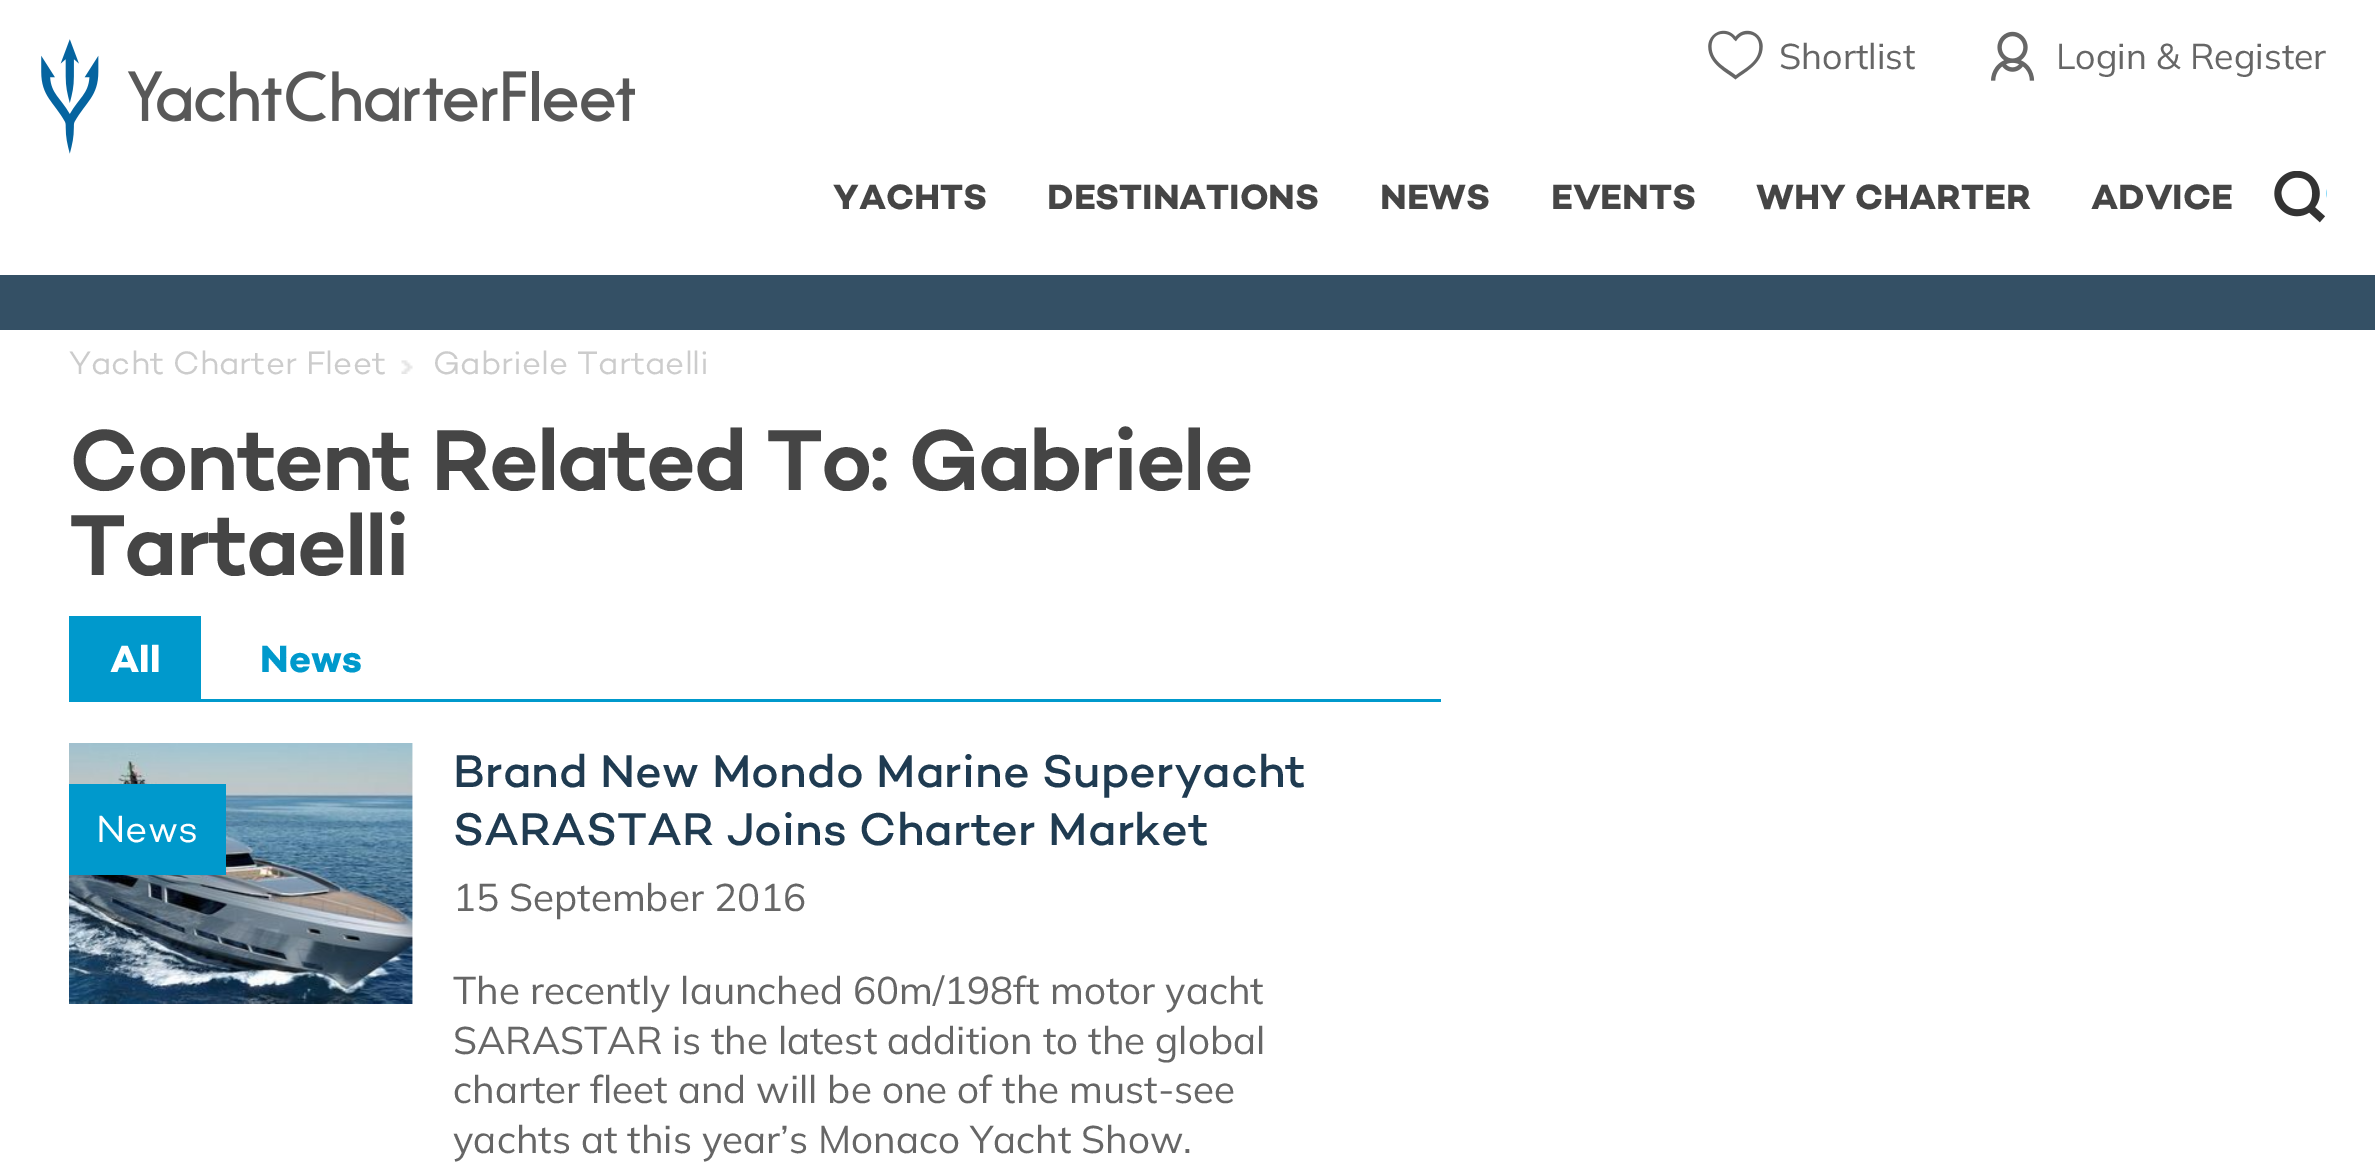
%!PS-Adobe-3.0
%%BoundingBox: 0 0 2375 1173
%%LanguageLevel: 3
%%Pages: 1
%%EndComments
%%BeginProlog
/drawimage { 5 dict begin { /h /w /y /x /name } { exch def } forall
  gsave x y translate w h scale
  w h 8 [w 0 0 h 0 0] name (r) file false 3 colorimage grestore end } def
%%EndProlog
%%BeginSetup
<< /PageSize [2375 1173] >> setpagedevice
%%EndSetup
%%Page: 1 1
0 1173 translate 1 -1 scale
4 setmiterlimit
1 setgray
0 0 2375 1173 rectfill
(images/1.raw) 41 39 594 115 drawimage
(images/2.raw) 1708 30 55 50 drawimage
(images/3.raw) 1991 31 44 50 drawimage
(images/4.raw) 2274 171 53 52 drawimage
0.204 0.314 0.396 setrgbcolor
0 275 2375 55 rectfill
(images/5.raw) 401 360 12 14 drawimage
0 0.6 0.8 setrgbcolor
69 699 1372 3 rectfill
69 616 132 83 rectfill
(images/6.raw) 69 743 344 261 drawimage
69 784 157 91 rectfill
/Mulish-Regular [35.75 0 0 -35.75 0 0] selectfont
0.4 setgray
1779 69 moveto (Shortlist) show
2056 69 moveto (Login & Register) show
/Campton-Bold [35.75 0 0 -35.75 0 0] selectfont
0.271 setgray
833 209 moveto -0.1 0 (YACHTS) ashow
1047 209 moveto -0.1 0 (DESTINATIONS) ashow
1380 209 moveto -0.1 0 (NEWS) ashow
1551 209 moveto -0.1 0 (EVENTS) ashow
1756 209 moveto -0.1 0 (WHY CHARTER) ashow
2091 209 moveto -0.1 0 (ADVICE) ashow
/Campton-Regular [33 0 0 -33 0 0] selectfont
0.8 setgray
69 374 moveto (Yacht Charter Fleet) show
433 374 moveto (Gabriele Tartaelli) show
/Campton-SemiBold [88 0 0 -88 0 0] selectfont
0.271 setgray
69 490 moveto -2.2 0 (Content Related To: Gabriele) ashow
69 575 moveto -2.2 0 (Tartaelli) ashow
/Campton-Bold [38.5 0 0 -38.5 0 0] selectfont
1 setgray
110 672 moveto (All) show
0 0.6 0.8 setrgbcolor
260 672 moveto (News) show
/Campton-Regular [38.5 0 0 -38.5 0 0] selectfont
1 setgray
96 842 moveto (News) show
/Campton-Medium [46.75 0 0 -46.75 0 0] selectfont
0.122 0.231 0.318 setrgbcolor
453 787 moveto (Brand New Mondo Marine Superyacht) show
453 845 moveto (SARASTAR Joins Charter Market) show
/Mulish-Regular [38.5 0 0 -38.5 0 0] selectfont
0.4 setgray
453 911 moveto (15 September 2016) show
453 1004 moveto (The recently launched 60m/198ft motor yacht) show
453 1054 moveto (SARASTAR is the latest addition to the global) show
453 1103 moveto (charter fleet and will be one of the must-see) show
453 1153 moveto (yachts at this year’s Monaco Yacht Show.) show
showpage
%%EOF
